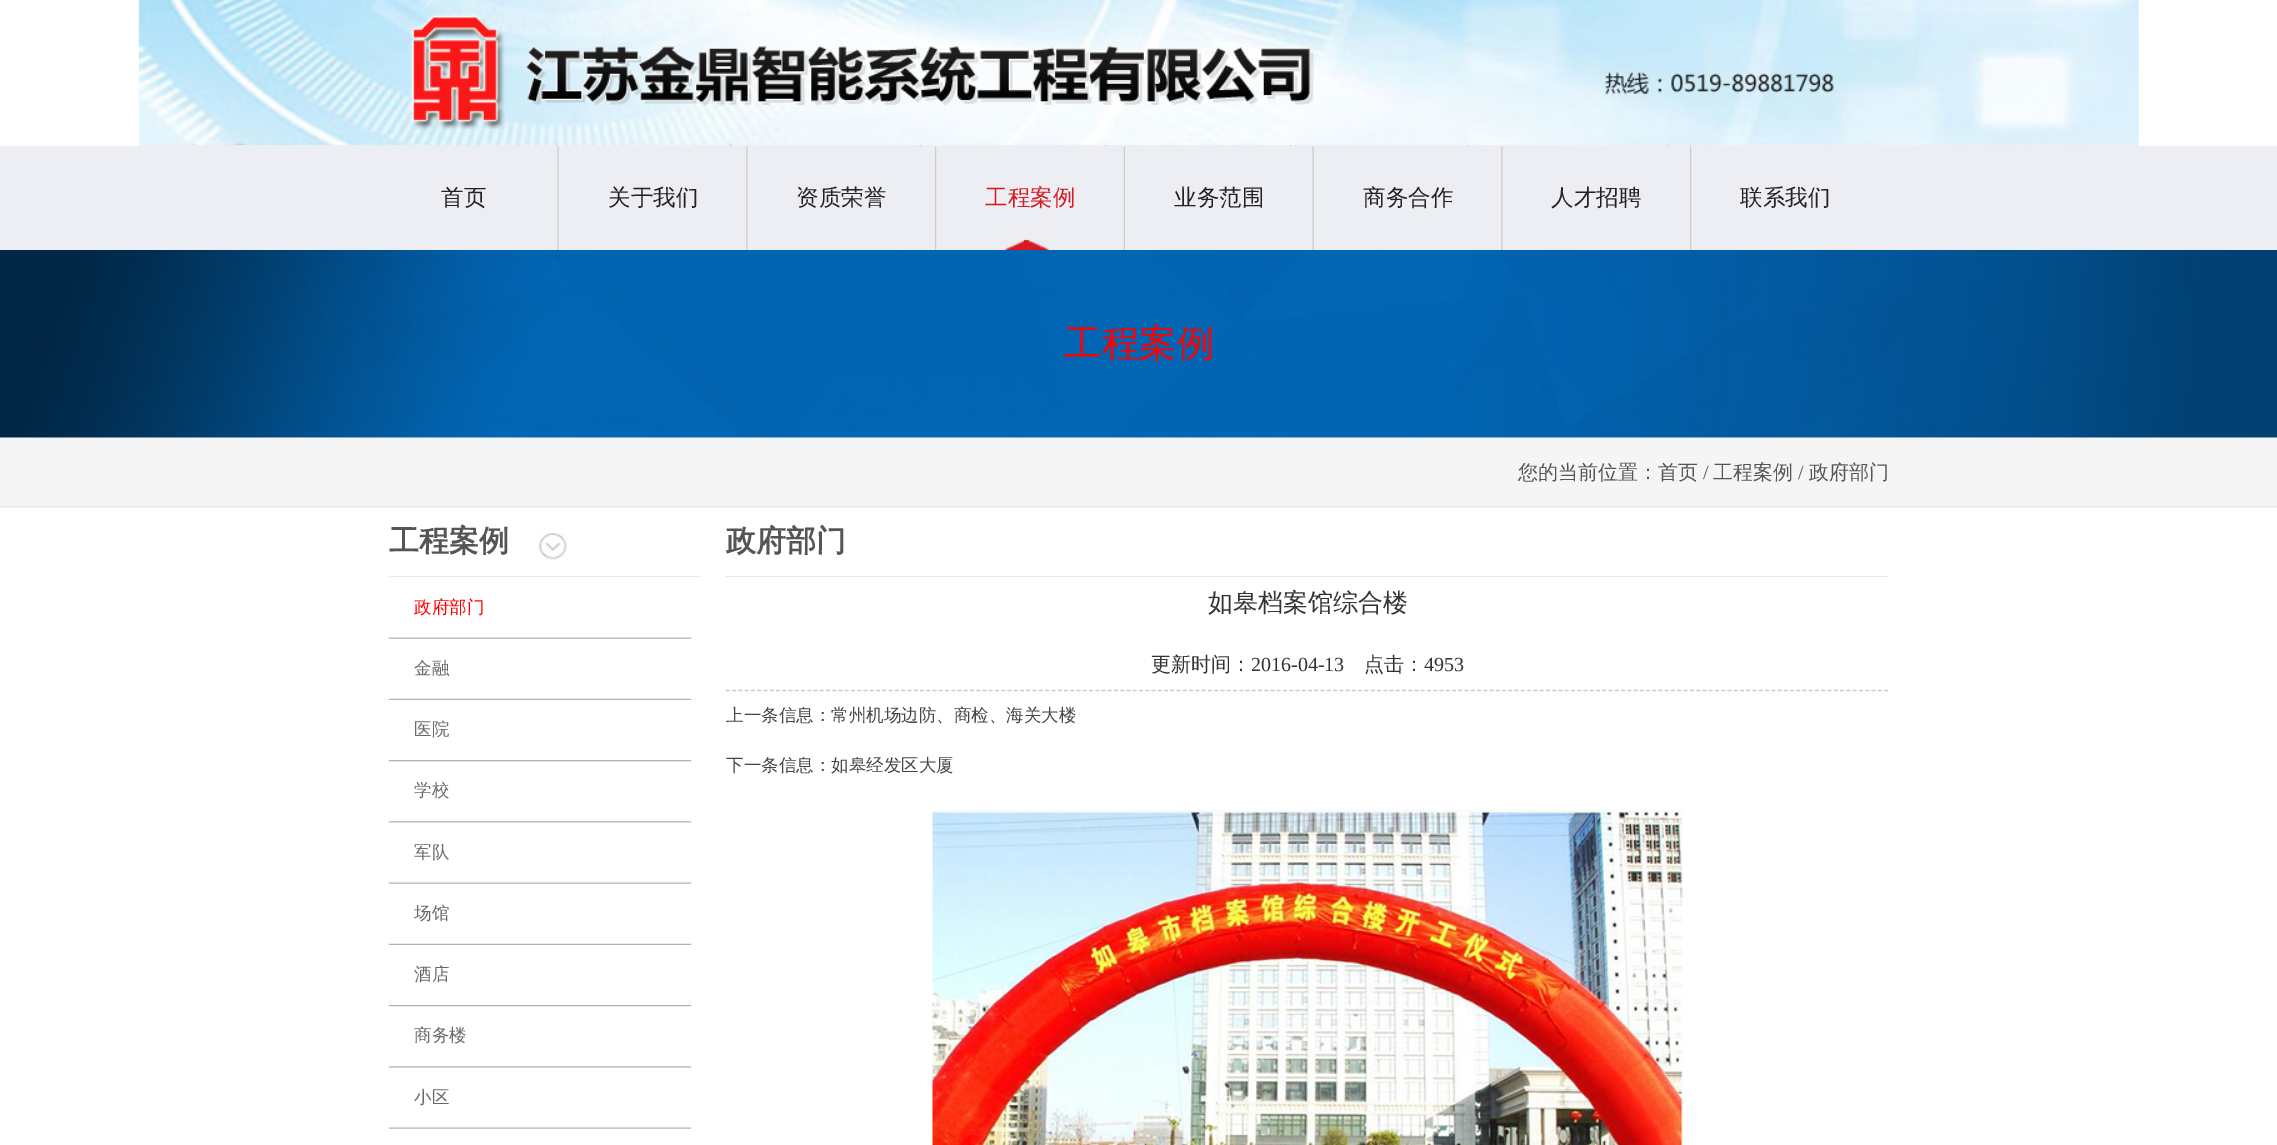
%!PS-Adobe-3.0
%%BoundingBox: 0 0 2277 1145
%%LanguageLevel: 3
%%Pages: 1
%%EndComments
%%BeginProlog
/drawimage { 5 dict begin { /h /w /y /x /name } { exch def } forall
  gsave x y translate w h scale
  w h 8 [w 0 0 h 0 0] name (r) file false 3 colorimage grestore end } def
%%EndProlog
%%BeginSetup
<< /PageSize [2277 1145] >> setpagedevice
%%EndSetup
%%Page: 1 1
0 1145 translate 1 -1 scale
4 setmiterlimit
1 setgray
0 0 2277 1145 rectfill
(images/1.raw) 138 0 2001 146 drawimage
0.929 0.933 0.953 setrgbcolor
0 146 2277 104 rectfill
(images/3.raw) 557 146 2 104 drawimage
(images/4.raw) 746 146 2 104 drawimage
(images/5.raw) 935 146 2 104 drawimage
(images/7.raw) 1123 146 2 104 drawimage
(images/3.raw) 1312 146 2 104 drawimage
(images/4.raw) 1501 146 2 104 drawimage
(images/5.raw) 1690 146 2 104 drawimage
(images/2.raw) 422 18 1269 129 drawimage
(images/6.raw) 1004 236 51 14 drawimage
(images/8.raw) 0 250 2277 188 drawimage
0.961 setgray
0 438 2277 70 rectfill
0.902 0.914 0.933 setrgbcolor
0 506 2277 1 rectfill
389 576 312 1 rectfill
(images/9.raw) 538 532 29 28 drawimage
(images/10.raw) 388 637 304 2 drawimage
(images/11.raw) 388 698 304 2 drawimage
(images/12.raw) 388 760 304 2 drawimage
(images/13.raw) 388 821 304 2 drawimage
(images/10.raw) 388 882 304 2 drawimage
(images/11.raw) 388 943 304 2 drawimage
(images/12.raw) 388 1005 304 2 drawimage
(images/13.raw) 388 1066 304 2 drawimage
(images/10.raw) 388 1127 304 2 drawimage
726 576 1163 1 rectfill
0.8 setgray
1.2 setlinewidth
[3.75 2.51] 0 setdash
newpath 726 690.5 moveto 1889 690.5 lineto stroke
(images/14.raw) 932 810 751 335 drawimage
/WenQuanYiZenHei-Medium [22.5 0 0 -22.5 0 0] selectfont
0.133 setgray
441 205 moveto (首页) show
608 205 moveto (关于我们) show
796 205 moveto (资质荣誉) show
0.843 0.102 0.129 setrgbcolor
985 205 moveto (工程案例) show
0.133 setgray
1174 205 moveto (业务范围) show
1363 205 moveto (商务合作) show
1551 205 moveto (人才招聘) show
1740 205 moveto (联系我们) show
/WenQuanYiZenHei-Medium [37.5 0 0 -37.5 0 0] selectfont
1 0 0 setrgbcolor
1064 356 moveto (工程案例) show
/WenQuanYiZenHei-Medium [20 0 0 -20 0 0] selectfont
0.333 setgray
1518 479 moveto (您的当前位置：首页) show
/LiberationSerif-Regular [20 0 0 -20 0 0] selectfont
1703 479 moveto (/) show
/WenQuanYiZenHei-Medium [20 0 0 -20 0 0] selectfont
1713 479 moveto (工程案例) show
/LiberationSerif-Regular [20 0 0 -20 0 0] selectfont
1798 479 moveto (/) show
/WenQuanYiZenHei-Medium [20 0 0 -20 0 0] selectfont
1809 479 moveto (政府部门) show
/WenQuanYiZenHei-Bold [30 0 0 -30 0 0] selectfont
389 551 moveto (工程案例) show
/WenQuanYiZenHei-Medium [17.5 0 0 -17.5 0 0] selectfont
1 0 0 setrgbcolor
414 613 moveto (政府部门) show
0.412 setgray
414 674 moveto (金融) show
414 735 moveto (医院) show
414 796 moveto (学校) show
414 858 moveto (军队) show
414 919 moveto (场馆) show
414 980 moveto (酒店) show
414 1041 moveto (商务楼) show
414 1103 moveto (小区) show
/WenQuanYiZenHei-Bold [30 0 0 -30 0 0] selectfont
0.333 setgray
726 551 moveto (政府部门) show
/WenQuanYiZenHei-Medium [25 0 0 -25 0 0] selectfont
0.2 setgray
1208 611 moveto (如皋档案馆综合楼) show
/WenQuanYiZenHei-Medium [20 0 0 -20 0 0] selectfont
1151 671 moveto (更新时间：) show
/LiberationSerif-Regular [20 0 0 -20 0 0] selectfont
1251 671 moveto (2016-04-13) show
/WenQuanYiZenHei-Medium [20 0 0 -20 0 0] selectfont
1364 671 moveto (点击：) show
/LiberationSerif-Regular [20 0 0 -20 0 0] selectfont
1424 671 moveto (4953) show
/WenQuanYiZenHei-Medium [17.5 0 0 -17.5 0 0] selectfont
0.271 setgray
726 721 moveto (上一条信息：常州机场边防、商检、海关大楼) show
726 771 moveto (下一条信息：如皋经发区大厦) show
showpage
%%EOF
